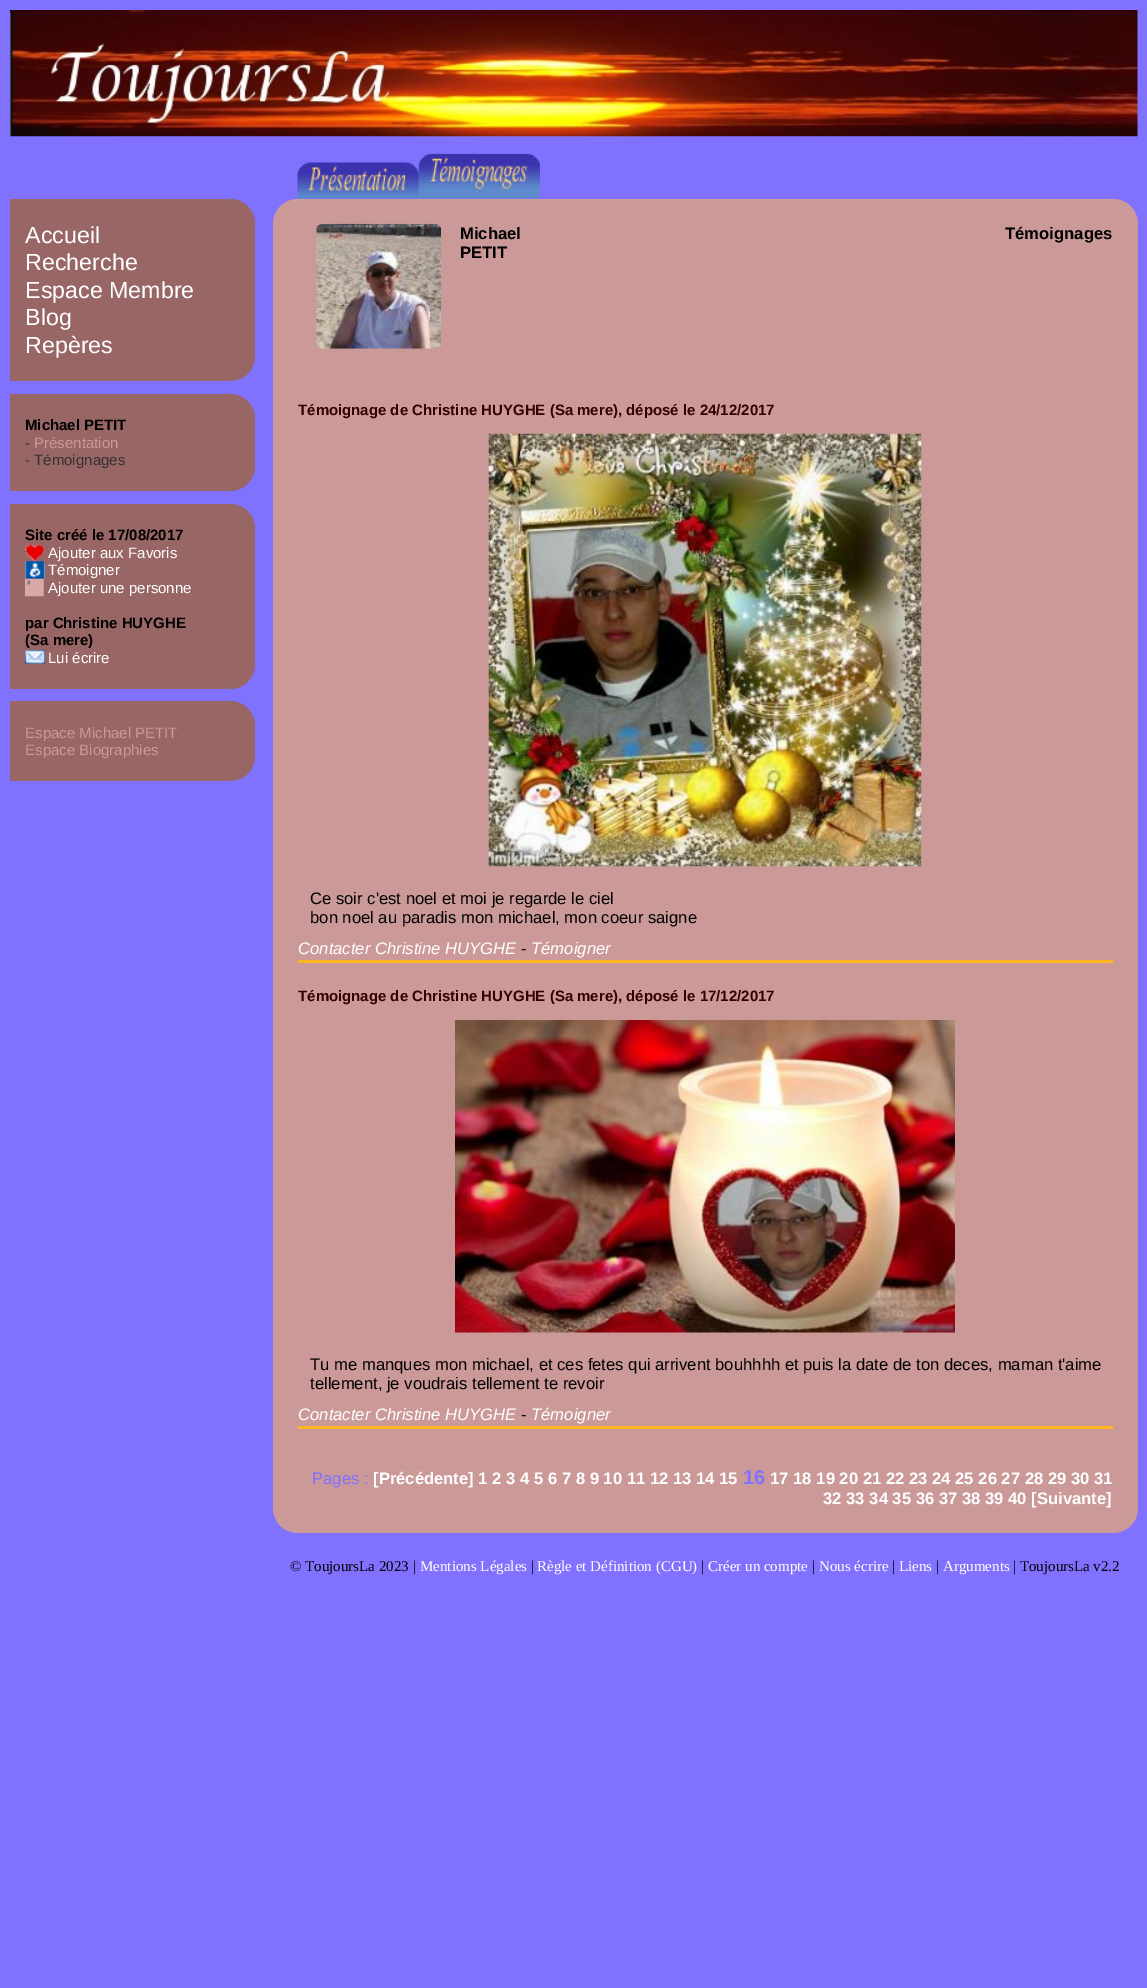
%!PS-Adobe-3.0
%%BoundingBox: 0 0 1147 1988
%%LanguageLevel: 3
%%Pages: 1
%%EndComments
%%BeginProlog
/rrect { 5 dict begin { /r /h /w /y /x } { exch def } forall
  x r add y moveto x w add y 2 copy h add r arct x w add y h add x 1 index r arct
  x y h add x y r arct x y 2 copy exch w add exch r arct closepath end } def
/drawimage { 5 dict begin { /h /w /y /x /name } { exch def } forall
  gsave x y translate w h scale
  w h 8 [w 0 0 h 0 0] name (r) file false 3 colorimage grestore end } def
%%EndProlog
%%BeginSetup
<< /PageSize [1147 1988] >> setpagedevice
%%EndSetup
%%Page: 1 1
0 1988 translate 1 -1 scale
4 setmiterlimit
0.506 0.443 1 setrgbcolor
0 0 1147 1988 rectfill
(images/1.raw) 10 10 1128 127 drawimage
(images/2.raw) 297 162 122 37 drawimage
(images/3.raw) 418 153 122 46 drawimage
0.6 0.4 0.4 setrgbcolor
newpath 10 199 moveto 230 199 lineto 244 199 255 210 255 224 curveto 255 356 lineto 255 370 244 381 230 381 curveto 10 381 lineto closepath fill
254 221 1 138 rectfill
newpath 10 394 moveto 230 394 lineto 244 394 255 405 255 419 curveto 255 466 lineto 255 480 244 491 230 491 curveto 10 491 lineto closepath fill
254 416 1 53 rectfill
newpath 10 504 moveto 230 504 lineto 244 504 255 515 255 529 curveto 255 664 lineto 255 678 244 689 230 689 curveto 10 689 lineto closepath fill
254 526 1 140 rectfill
(images/4.raw) 25 544 19 18 drawimage
(images/5.raw) 25 561 20 18 drawimage
(images/6.raw) 25 578 19 19 drawimage
(images/7.raw) 25 649 20 15 drawimage
newpath 10 701 moveto 230 701 lineto 244 701 255 712 255 726 curveto 255 756 lineto 255 770 244 781 230 781 curveto 10 781 lineto closepath fill
254 724 1 35 rectfill
0.8 0.6 0.6 setrgbcolor
273 199 865 1334 25 rrect fill
(images/8.raw) 316 223 126 126 drawimage
(images/9.raw) 488 433 434 434 drawimage
0.992 0.71 0.129 setrgbcolor
298 960 815 3 rectfill
(images/10.raw) 455 1020 500 313 drawimage
298 1426 815 3 rectfill
/LiberationSans-Regular [23.25 0 0 -23.25 0 0] selectfont
1 setgray
25 243 moveto (Accueil) show
25 270 moveto (Recherche) show
25 298 moveto (Espace Membre) show
25 325 moveto (Blog) show
25 353 moveto (Repères) show
/LiberationSans-Bold [15 0 0 -15 0 0] selectfont
0 setgray
25 430 moveto (Michael PETIT) show
/LiberationSans-Regular [15 0 0 -15 0 0] selectfont
0.2 setgray
25 448 moveto (-) show
0.8 0.6 0.6 setrgbcolor
34 448 moveto (Présentation) show
0.2 setgray
25 465 moveto (- Témoignages) show
/LiberationSans-Bold [15 0 0 -15 0 0] selectfont
0 setgray
25 540 moveto (Site créé le 17/08/2017) show
/LiberationSans-Regular [15 0 0 -15 0 0] selectfont
1 setgray
48 558 moveto (Ajouter aux Favoris) show
48 575 moveto (Témoigner) show
48 593 moveto (Ajouter une personne) show
/LiberationSans-Bold [15 0 0 -15 0 0] selectfont
0 setgray
25 628 moveto (par Christine HUYGHE) show
25 645 moveto (\(Sa mere\)) show
/LiberationSans-Regular [15 0 0 -15 0 0] selectfont
1 setgray
48 663 moveto (Lui écrire) show
0.8 0.6 0.6 setrgbcolor
25 738 moveto (Espace Michael PETIT) show
25 755 moveto (Espace Biographies) show
/LiberationSans-Bold [16.65 0 0 -16.65 0 0] selectfont
0 setgray
460 239 moveto (Michael) show
460 258 moveto (PETIT) show
1005 239 moveto (Témoignages) show
/LiberationSans-Bold [15 0 0 -15 0 0] selectfont
0.2 0 0 setrgbcolor
298 415 moveto (Témoignage de Christine HUYGHE \(Sa mere\), déposé le 24/12/2017) show
/LiberationSans-Regular [16.65 0 0 -16.65 0 0] selectfont
0 setgray
310 904 moveto (Ce soir c'est noel et moi je regarde le ciel) show
310 923 moveto (bon noel au paradis mon michael, mon coeur saigne) show
/LiberationSans-Italic [16.65 0 0 -16.65 0 0] selectfont
1 setgray
298 954 moveto (Contacter Christine HUYGHE) show
/LiberationSans-Regular [16.65 0 0 -16.65 0 0] selectfont
0 setgray
521 954 moveto (-) show
/LiberationSans-Italic [16.65 0 0 -16.65 0 0] selectfont
1 setgray
531 954 moveto (Témoigner) show
/LiberationSans-Bold [15 0 0 -15 0 0] selectfont
0.2 0 0 setrgbcolor
298 1001 moveto (Témoignage de Christine HUYGHE \(Sa mere\), déposé le 17/12/2017) show
/LiberationSans-Regular [16.65 0 0 -16.65 0 0] selectfont
0 setgray
310 1370 moveto (Tu me manques mon michael, et ces fetes qui arrivent bouhhhh et puis la date de ton deces, maman t'aime) show
310 1389 moveto (tellement, je voudrais tellement te revoir) show
/LiberationSans-Italic [16.65 0 0 -16.65 0 0] selectfont
1 setgray
298 1420 moveto (Contacter Christine HUYGHE) show
/LiberationSans-Regular [16.65 0 0 -16.65 0 0] selectfont
0 setgray
521 1420 moveto (-) show
/LiberationSans-Italic [16.65 0 0 -16.65 0 0] selectfont
1 setgray
531 1420 moveto (Témoigner) show
/LiberationSans-Regular [16.65 0 0 -16.65 0 0] selectfont
0.506 0.443 1 setrgbcolor
312 1484 moveto (Pages :) show
/LiberationSans-Bold [16.65 0 0 -16.65 0 0] selectfont
1 setgray
373 1484 moveto ([Précédente] 1 2 3 4 5 6 7 8 9 10 11 12 13 14 15) show
/LiberationSans-Bold [20 0 0 -20 0 0] selectfont
0.506 0.443 1 setrgbcolor
743 1484 moveto (16) show
/LiberationSans-Bold [16.65 0 0 -16.65 0 0] selectfont
1 setgray
770 1484 moveto (17 18 19 20 21 22 23 24 25 26 27 28 29 30 31) show
823 1504 moveto (32 33 34 35 36 37 38 39 40 [Suivante]) show
/LiberationSerif-Regular [15 0 0 -15 0 0] selectfont
0 setgray
290 1571 moveto (© ToujoursLa 2023 |) show
1 setgray
420 1571 moveto (Mentions Légales) show
0 setgray
531 1571 moveto (|) show
1 setgray
537 1571 moveto (Règle et Définition \(CGU\)) show
0 setgray
701 1571 moveto (|) show
1 setgray
708 1571 moveto (Créer un compte) show
0 setgray
812 1571 moveto (|) show
1 setgray
819 1571 moveto (Nous écrire) show
0 setgray
892 1571 moveto (|) show
1 setgray
899 1571 moveto (Liens) show
0 setgray
936 1571 moveto (|) show
1 setgray
943 1571 moveto (Arguments) show
0 setgray
1013 1571 moveto (| ToujoursLa v2.2) show
showpage
%%EOF
